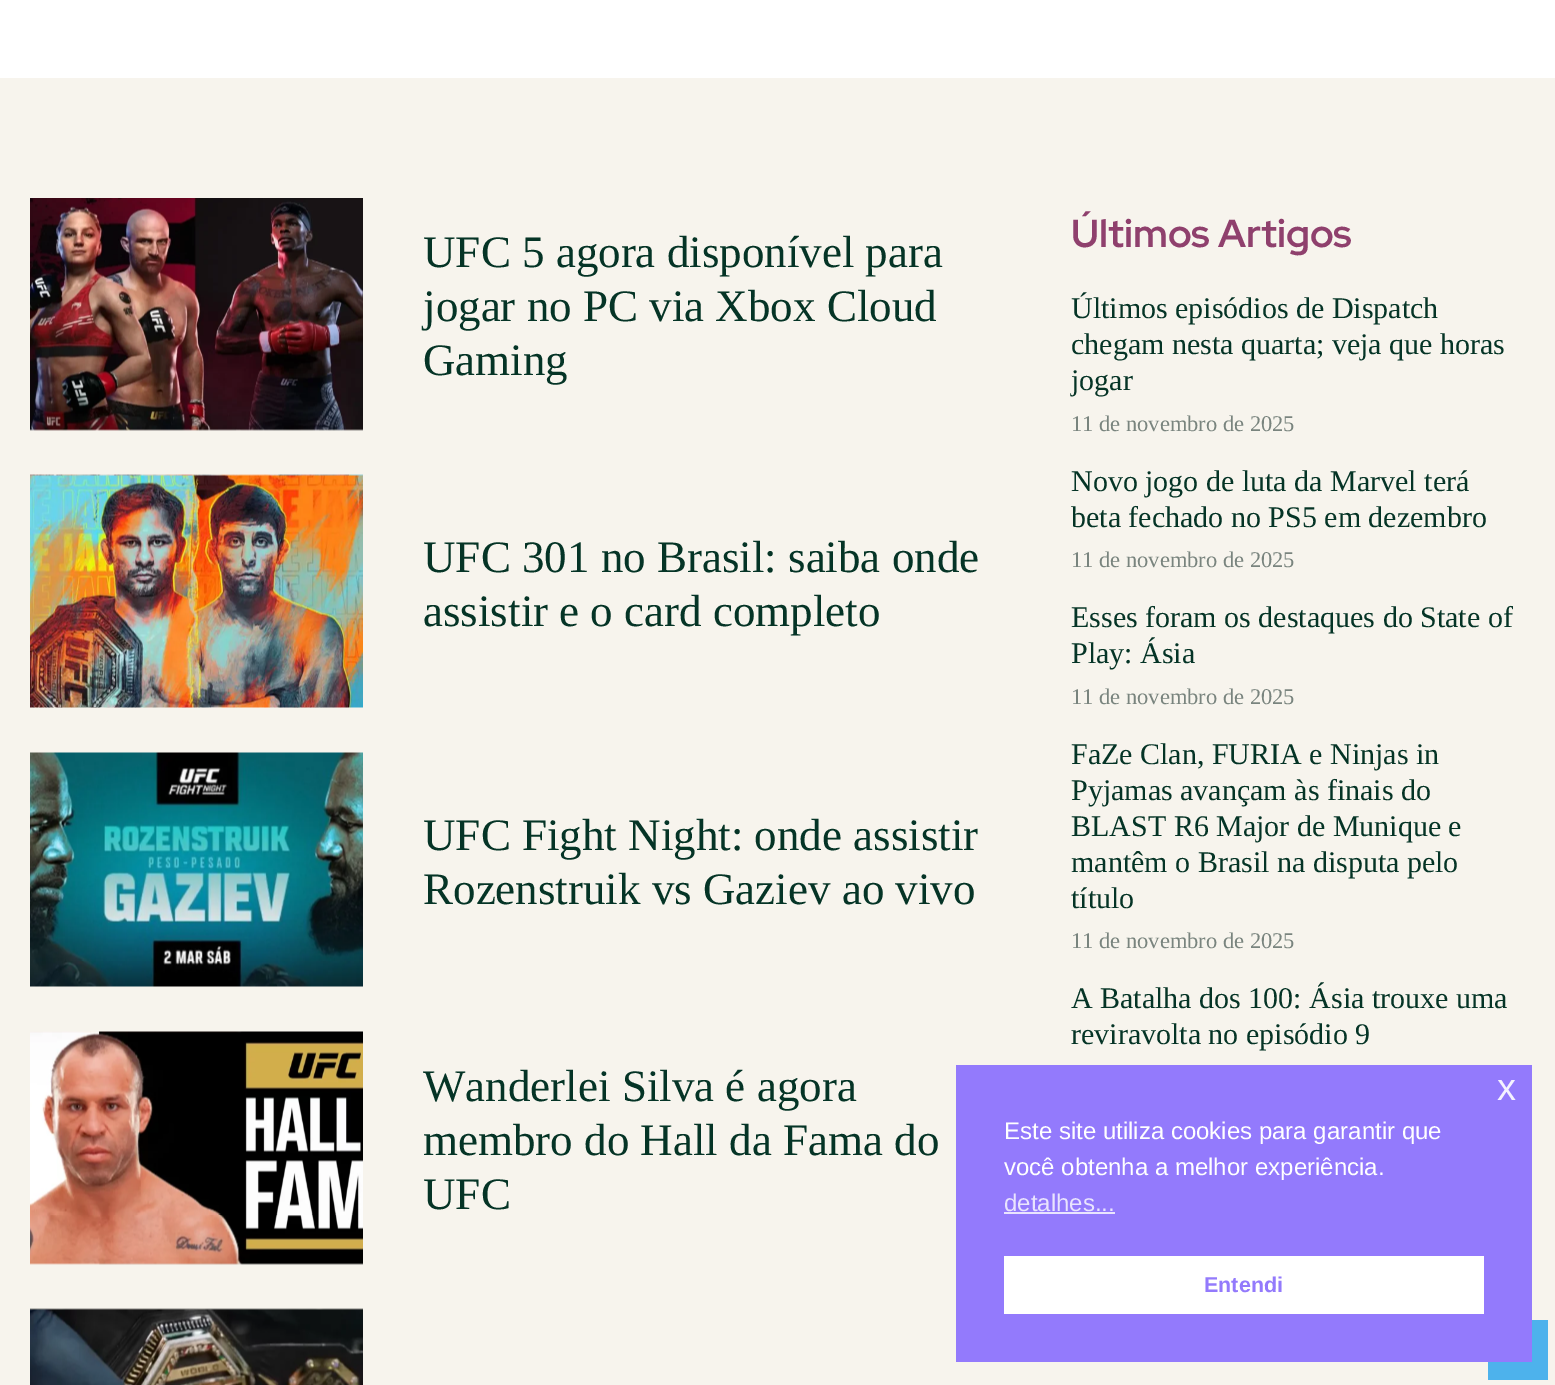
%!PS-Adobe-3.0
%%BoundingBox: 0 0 1555 1385
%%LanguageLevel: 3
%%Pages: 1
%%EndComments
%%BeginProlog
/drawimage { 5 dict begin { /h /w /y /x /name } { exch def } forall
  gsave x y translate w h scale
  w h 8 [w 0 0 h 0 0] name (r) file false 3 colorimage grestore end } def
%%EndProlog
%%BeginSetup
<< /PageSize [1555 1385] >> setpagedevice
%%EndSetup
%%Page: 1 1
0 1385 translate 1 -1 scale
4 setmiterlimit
1 setgray
0 0 1555 1385 rectfill
0.969 0.957 0.929 setrgbcolor
0 78 1555 1307 rectfill
(images/1.raw) 30 198 333 233 drawimage
(images/2.raw) 30 474 333 234 drawimage
(images/3.raw) 30 752 333 235 drawimage
(images/4.raw) 30 1031 333 234 drawimage
(images/5.raw) 30 1308 333 77 drawimage
0.302 0.698 0.925 setrgbcolor
1488 1320 60 60 rectfill
0.576 0.478 0.988 setrgbcolor
956 1065 576 297 rectfill
0.914 0.894 0.996 setrgbcolor
1004 1212 111 2 rectfill
1 setgray
1004 1256 480 58 rectfill
/LiberationSerif-Regular [45 0 0 -45 0 0] selectfont
0.02 0.204 0.149 setrgbcolor
423 267 moveto (UFC 5 agora disponível para) show
423 321 moveto (jogar no PC via Xbox Cloud) show
423 375 moveto (Gaming) show
423 572 moveto (UFC 301 no Brasil: saiba onde) show
423 626 moveto (assistir e o card completo) show
423 850 moveto (UFC Fight Night: onde assistir) show
423 904 moveto (Rozenstruik vs Gaziev ao vivo) show
423 1101 moveto (Wanderlei Silva é agora) show
423 1155 moveto (membro do Hall da Fama do) show
423 1209 moveto (UFC) show
/RedHatDisplay-Bold [39 0 0 -39 0 0] selectfont
0.561 0.251 0.427 setrgbcolor
1071 247 moveto (Últimos Artigos) show
/LiberationSerif-Regular [30 0 0 -30 0 0] selectfont
0.02 0.204 0.149 setrgbcolor
1071 318 moveto (Últimos episódios de Dispatch) show
1071 354 moveto (chegam nesta quarta; veja que horas) show
1071 390 moveto (jogar) show
/LiberationSerif-Regular [22.5 0 0 -22.5 0 0] selectfont
0.475 0.518 0.494 setrgbcolor
1071 431 moveto (11 de novembro de 2025) show
/LiberationSerif-Regular [30 0 0 -30 0 0] selectfont
0.02 0.204 0.149 setrgbcolor
1071 491 moveto (Novo jogo de luta da Marvel terá) show
1071 527 moveto (beta fechado no PS5 em dezembro) show
/LiberationSerif-Regular [22.5 0 0 -22.5 0 0] selectfont
0.475 0.518 0.494 setrgbcolor
1071 567 moveto (11 de novembro de 2025) show
/LiberationSerif-Regular [30 0 0 -30 0 0] selectfont
0.02 0.204 0.149 setrgbcolor
1071 627 moveto (Esses foram os destaques do State of) show
1071 663 moveto (Play: Ásia) show
/LiberationSerif-Regular [22.5 0 0 -22.5 0 0] selectfont
0.475 0.518 0.494 setrgbcolor
1071 704 moveto (11 de novembro de 2025) show
/LiberationSerif-Regular [30 0 0 -30 0 0] selectfont
0.02 0.204 0.149 setrgbcolor
1071 764 moveto (FaZe Clan, FURIA e Ninjas in) show
1071 800 moveto (Pyjamas avançam às finais do) show
1071 836 moveto (BLAST R6 Major de Munique e) show
1071 872 moveto (mantêm o Brasil na disputa pelo) show
1071 908 moveto (título) show
/LiberationSerif-Regular [22.5 0 0 -22.5 0 0] selectfont
0.475 0.518 0.494 setrgbcolor
1071 948 moveto (11 de novembro de 2025) show
/LiberationSerif-Regular [30 0 0 -30 0 0] selectfont
0.02 0.204 0.149 setrgbcolor
1071 1008 moveto (A Batalha dos 100: Ásia trouxe uma) show
1071 1044 moveto (reviravolta no episódio 9) show
/LiberationSans-Regular [38 0 0 -38 0 0] selectfont
0.957 0.949 1 setrgbcolor
1497 1100 moveto (x) show
/LiberationSans-Regular [24 0 0 -24 0 0] selectfont
1 setgray
1004 1139 moveto (Este site utiliza cookies para garantir que) show
1004 1175 moveto (você obtenha a melhor experiência.) show
0.914 0.894 0.996 setrgbcolor
1004 1211 moveto (detalhes...) show
/LiberationSans-Bold [21.5 0 0 -21.5 0 0] selectfont
0.576 0.478 0.988 setrgbcolor
1204 1292 moveto (Entendi) show
showpage
%%EOF
